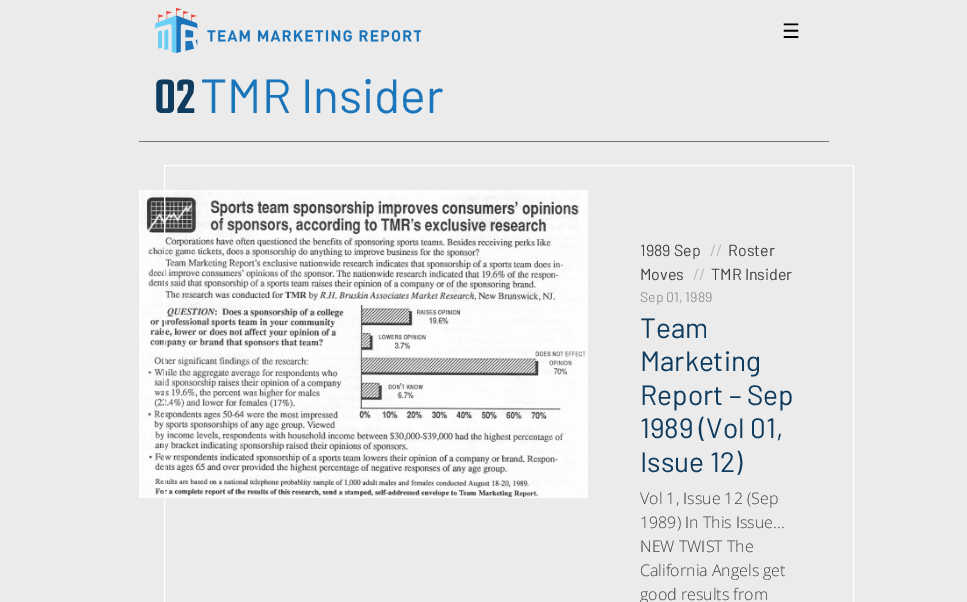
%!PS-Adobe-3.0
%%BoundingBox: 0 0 967 602
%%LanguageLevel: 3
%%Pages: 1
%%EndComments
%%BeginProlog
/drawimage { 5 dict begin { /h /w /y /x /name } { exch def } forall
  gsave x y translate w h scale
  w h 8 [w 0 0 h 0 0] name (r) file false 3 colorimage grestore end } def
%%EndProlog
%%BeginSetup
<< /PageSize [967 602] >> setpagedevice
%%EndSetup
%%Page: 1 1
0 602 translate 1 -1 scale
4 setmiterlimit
0.922 setgray
0 0 967 602 rectfill
(images/1.raw) 155 8 266 45 drawimage
0.463 setgray
139 141 690 1 rectfill
(images/2.raw) 139 190 449 308 drawimage
1 setgray
164.5 165.5 689 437 rectstroke
/DejaVuSans-Regular [20 0 0 -20 0 0] selectfont
0 setgray
782 38 moveto (☰) show
/Teko-Light [53 0 0 -53 0 0] selectfont
0.055 0.231 0.369 setrgbcolor
154 113 moveto (02) show
/Barlow-Regular [48 0 0 -48 0 0] selectfont
0.106 0.459 0.733 setrgbcolor
200 113 moveto (TMR Insider) show
/Barlow-Regular [16 0 0 -16 0 0] selectfont
0.259 setgray
640 256 moveto (1989 Sep) show
0.722 setgray
710 256 moveto (//) show
0.259 setgray
728 256 moveto (Roster) show
640 280 moveto (Moves) show
0.722 setgray
693 280 moveto (//) show
0.259 setgray
711 280 moveto (TMR Insider) show
/Barlow-Regular [14 0 0 -14 0 0] selectfont
0.592 setgray
640 302 moveto (Sep 01, 1989) show
/Barlow-Regular [28 0 0 -28 0 0] selectfont
0.055 0.231 0.369 setrgbcolor
640 338 moveto (Team) show
640 371 moveto (Marketing) show
640 405 moveto (Report – Sep) show
640 438 moveto (1989 \(Vol 01,) show
640 472 moveto (Issue 12\)) show
/OpenSans-Light [16 0 0 -16 0 0] selectfont
0.259 setgray
640 504 moveto (Vol 1, Issue 12 \(Sep) show
640 528 moveto (1989\) In This Issue...) show
640 552 moveto (NEW TWIST The) show
640 576 moveto (California Angels get) show
640 600 moveto (good results from) show
showpage
%%EOF
